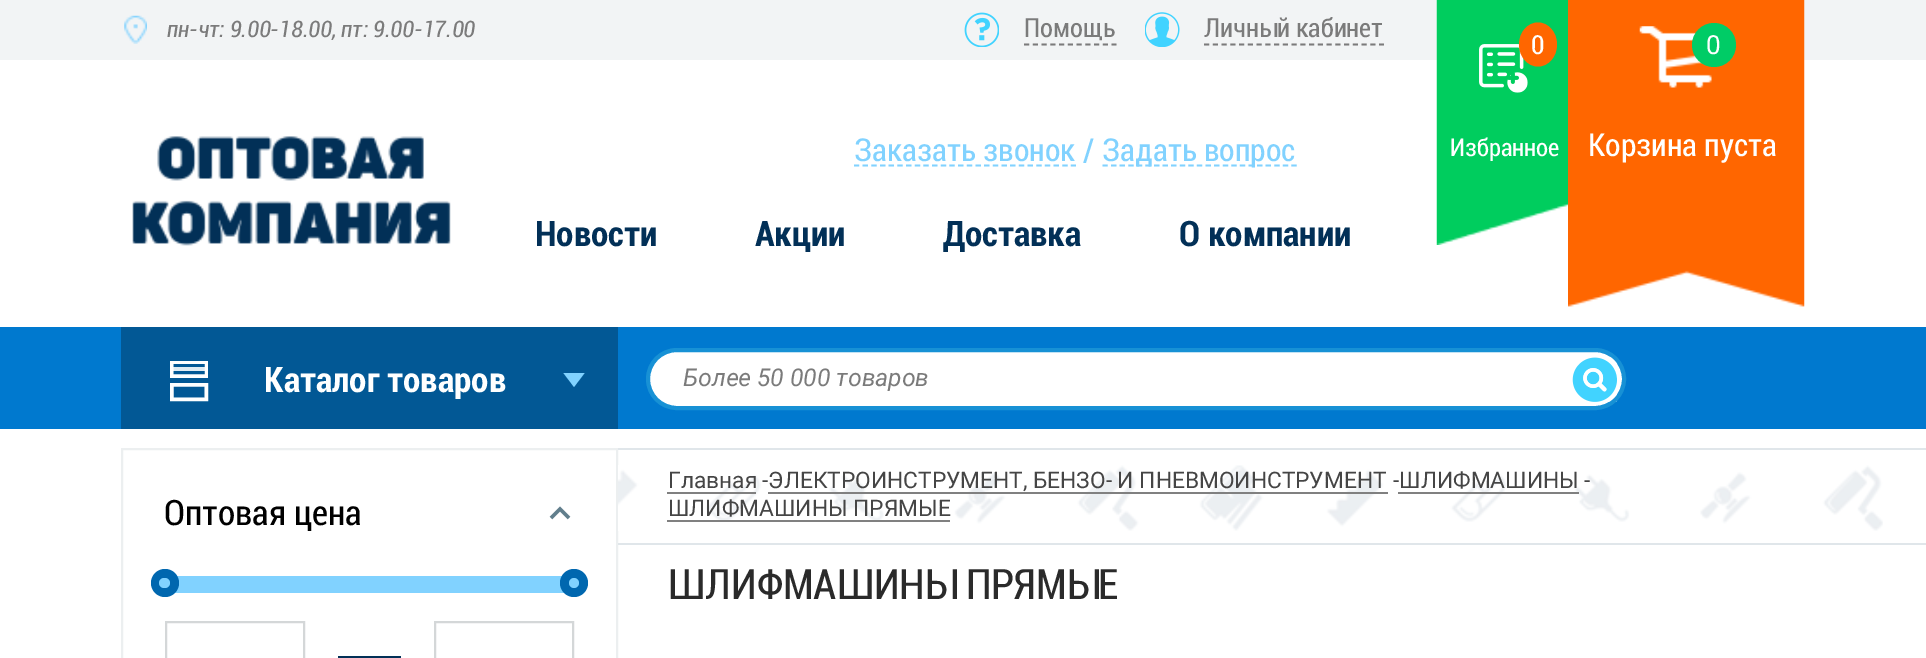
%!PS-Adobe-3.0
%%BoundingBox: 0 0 1926 658
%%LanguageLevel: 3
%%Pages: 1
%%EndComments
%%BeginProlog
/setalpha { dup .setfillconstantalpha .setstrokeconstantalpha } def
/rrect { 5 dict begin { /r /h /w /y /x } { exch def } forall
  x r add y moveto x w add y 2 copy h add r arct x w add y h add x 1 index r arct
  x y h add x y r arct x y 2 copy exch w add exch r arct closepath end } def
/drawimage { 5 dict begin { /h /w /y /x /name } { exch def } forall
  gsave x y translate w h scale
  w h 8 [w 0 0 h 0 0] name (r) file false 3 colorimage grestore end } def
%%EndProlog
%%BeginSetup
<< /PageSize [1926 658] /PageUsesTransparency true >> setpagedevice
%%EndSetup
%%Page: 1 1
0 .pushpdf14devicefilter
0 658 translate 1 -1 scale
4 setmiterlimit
1 setgray
0 0 1926 658 rectfill
0.949 0.957 0.961 setrgbcolor
0 0 1926 60 rectfill
(images/1.raw) 124 15 23 29 drawimage
(images/2.raw) 964 12 35 35 drawimage
0.482 setgray
1.8 setlinewidth
[5.25 3.5] 0 setdash
newpath 1024 44.5 moveto 1116.5 44.5 lineto stroke
(images/3.raw) 1145 12 35 35 drawimage
newpath 1204 44.5 moveto 1384 44.5 lineto stroke
(images/4.raw) 1436 0 132 245 drawimage
(images/5.raw) 1479 44 49 49 drawimage
1 0.4 0 setrgbcolor
newpath 1538 22.5 moveto 1548.5 22.5 1557 32.5 1557 44.5 curveto 1557 56.5 1548.5 66.5 1538 66.5 curveto 1527.5 66.5 1519 56.5 1519 44.5 curveto 1519 32.5 1527.5 22.5 1538 22.5 curveto closepath fill
(images/6.raw) 1568 0 237 307 drawimage
(images/7.raw) 1639 26 73 62 drawimage
0 0.8 0.4 setrgbcolor
newpath 1714 45 22 0 360 arc closepath fill
(images/8.raw) 132 136 319 110 drawimage
0.506 0.824 1 setrgbcolor
[5.25 3.43] 0 setdash
newpath 854 165.5 moveto 1076 165.5 lineto stroke
[5.25 3.34] 0 setdash
newpath 1102.5 165.5 moveto 1297 165.5 lineto stroke
0 0.475 0.812 setrgbcolor
0 327 1926 102 rectfill
0.008 0.345 0.584 setrgbcolor
121 327 497 102 rectfill
gsave
170 361 38 40 rectclip
1 setgray
3.5 setlinewidth
[] 0 setdash
newpath 171.5 376 moveto 171.5 362 lineto 206.5 362 lineto 206.5 376 lineto closepath stroke
grestore
1 setgray
3.5 setlinewidth
[] 0 setdash
171.75 384.75 34.5 14.5 rectstroke
0.88 setalpha
173 367 35 4 rectfill
gsave
562 373 24 16 rectclip
1 setalpha
0.506 0.824 1 setrgbcolor
newpath 574 387 moveto 562 371 lineto 586 371 lineto closepath fill
grestore
1 setalpha
648 350 976 58 29 rrect gsave fill grestore
0.09 0.569 0.835 setrgbcolor
4 setlinewidth
stroke
(images/9.raw) 1572 357 45 45 drawimage
0.925 0.937 0.941 setrgbcolor
2 setlinewidth
122 449 495 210 rectstroke
0.38 0.494 0.549 setrgbcolor
3.5 setlinewidth
newpath 551 518 moveto 560 509 lineto 569 518 lineto stroke
0.506 0.824 1 setrgbcolor
174 576 391 17 rectfill
0 0.404 0.686 setrgbcolor
newpath 165 583 14 0 360 arc closepath fill
0.506 0.824 1 setrgbcolor
159 578 11 10 5 rrect fill
0 0.404 0.686 setrgbcolor
newpath 574 583 14 0 360 arc closepath fill
0.506 0.824 1 setrgbcolor
newpath 574 583 5 0 360 arc closepath fill
0.831 0.843 0.847 setrgbcolor
2 setlinewidth
166 622 138 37 rectstroke
0.008 0.188 0.341 setrgbcolor
338 656 63 2 rectfill
0.831 0.843 0.847 setrgbcolor
435 622 138 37 rectstroke
(images/10.raw) 618 465 1265 66 drawimage
0.878 0.902 0.918 setrgbcolor
618 448 1308 2 rectfill
618 543 1308 2 rectfill
0.502 setgray
667 492 89 2 rectfill
768 492 620 2 rectfill
1398 492 181 2 rectfill
667 520 283 2 rectfill
/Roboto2-Italic [22.75 0 0 -22.75 0 0] selectfont
0.482 setgray
167 37 moveto (пн-чт: 9.00-18.00, пт: 9.00-17.00) show
/Roboto2-Regular [26.25 0 0 -26.25 0 0] selectfont
1024 37 moveto (Помощь) show
1204 37 moveto (Личный кабинет) show
1 setgray
1531 54 moveto (0) show
/Roboto2-Regular [24.5 0 0 -24.5 0 0] selectfont
1450 156 moveto (Избранное) show
/Roboto-Regular [26.25 0 0 -26.25 0 0] selectfont
1706 54 moveto (0) show
/Roboto2-Regular [31.5 0 0 -31.5 0 0] selectfont
1588 156 moveto (Корзина пуста) show
0.506 0.824 1 setrgbcolor
854 161 moveto (Заказать звонок) show
1083 161 moveto (/) show
1102 161 moveto (Задать вопрос) show
/Roboto-Bold [35 0 0 -35 0 0] selectfont
0.008 0.188 0.341 setrgbcolor
535 246 moveto (Новости) show
755 246 moveto (Акции) show
943 246 moveto (Доставка) show
1179 246 moveto (О компании) show
1 setgray
264 392 moveto (Каталог товаров) show
/Roboto-Italic [24.5 0 0 -24.5 0 0] selectfont
0.482 setgray
683 386 moveto (Более 50 000 товаров) show
/Roboto2-Regular [35 0 0 -35 0 0] selectfont
0 setgray
164 525 moveto (Оптовая цена) show
/Roboto-Regular [22.75 0 0 -22.75 0 0] selectfont
0.271 setgray
668 488 moveto (Главная) show
762 488 moveto (-ЭЛЕКТРОИНСТРУМЕНТ, БЕНЗО- И ПНЕВМОИНСТРУМЕНТ) show
1393 488 moveto (-ШЛИФМАШИНЫ) show
1584 488 moveto (-) show
668 516 moveto (ШЛИФМАШИНЫ ПРЯМЫЕ) show
/Roboto2-Regular [42 0 0 -42 0 0] selectfont
0.165 setgray
668 599 moveto (ШЛИФМАШИНЫ ПРЯМЫЕ) show
.poppdf14devicefilter showpage
%%EOF
